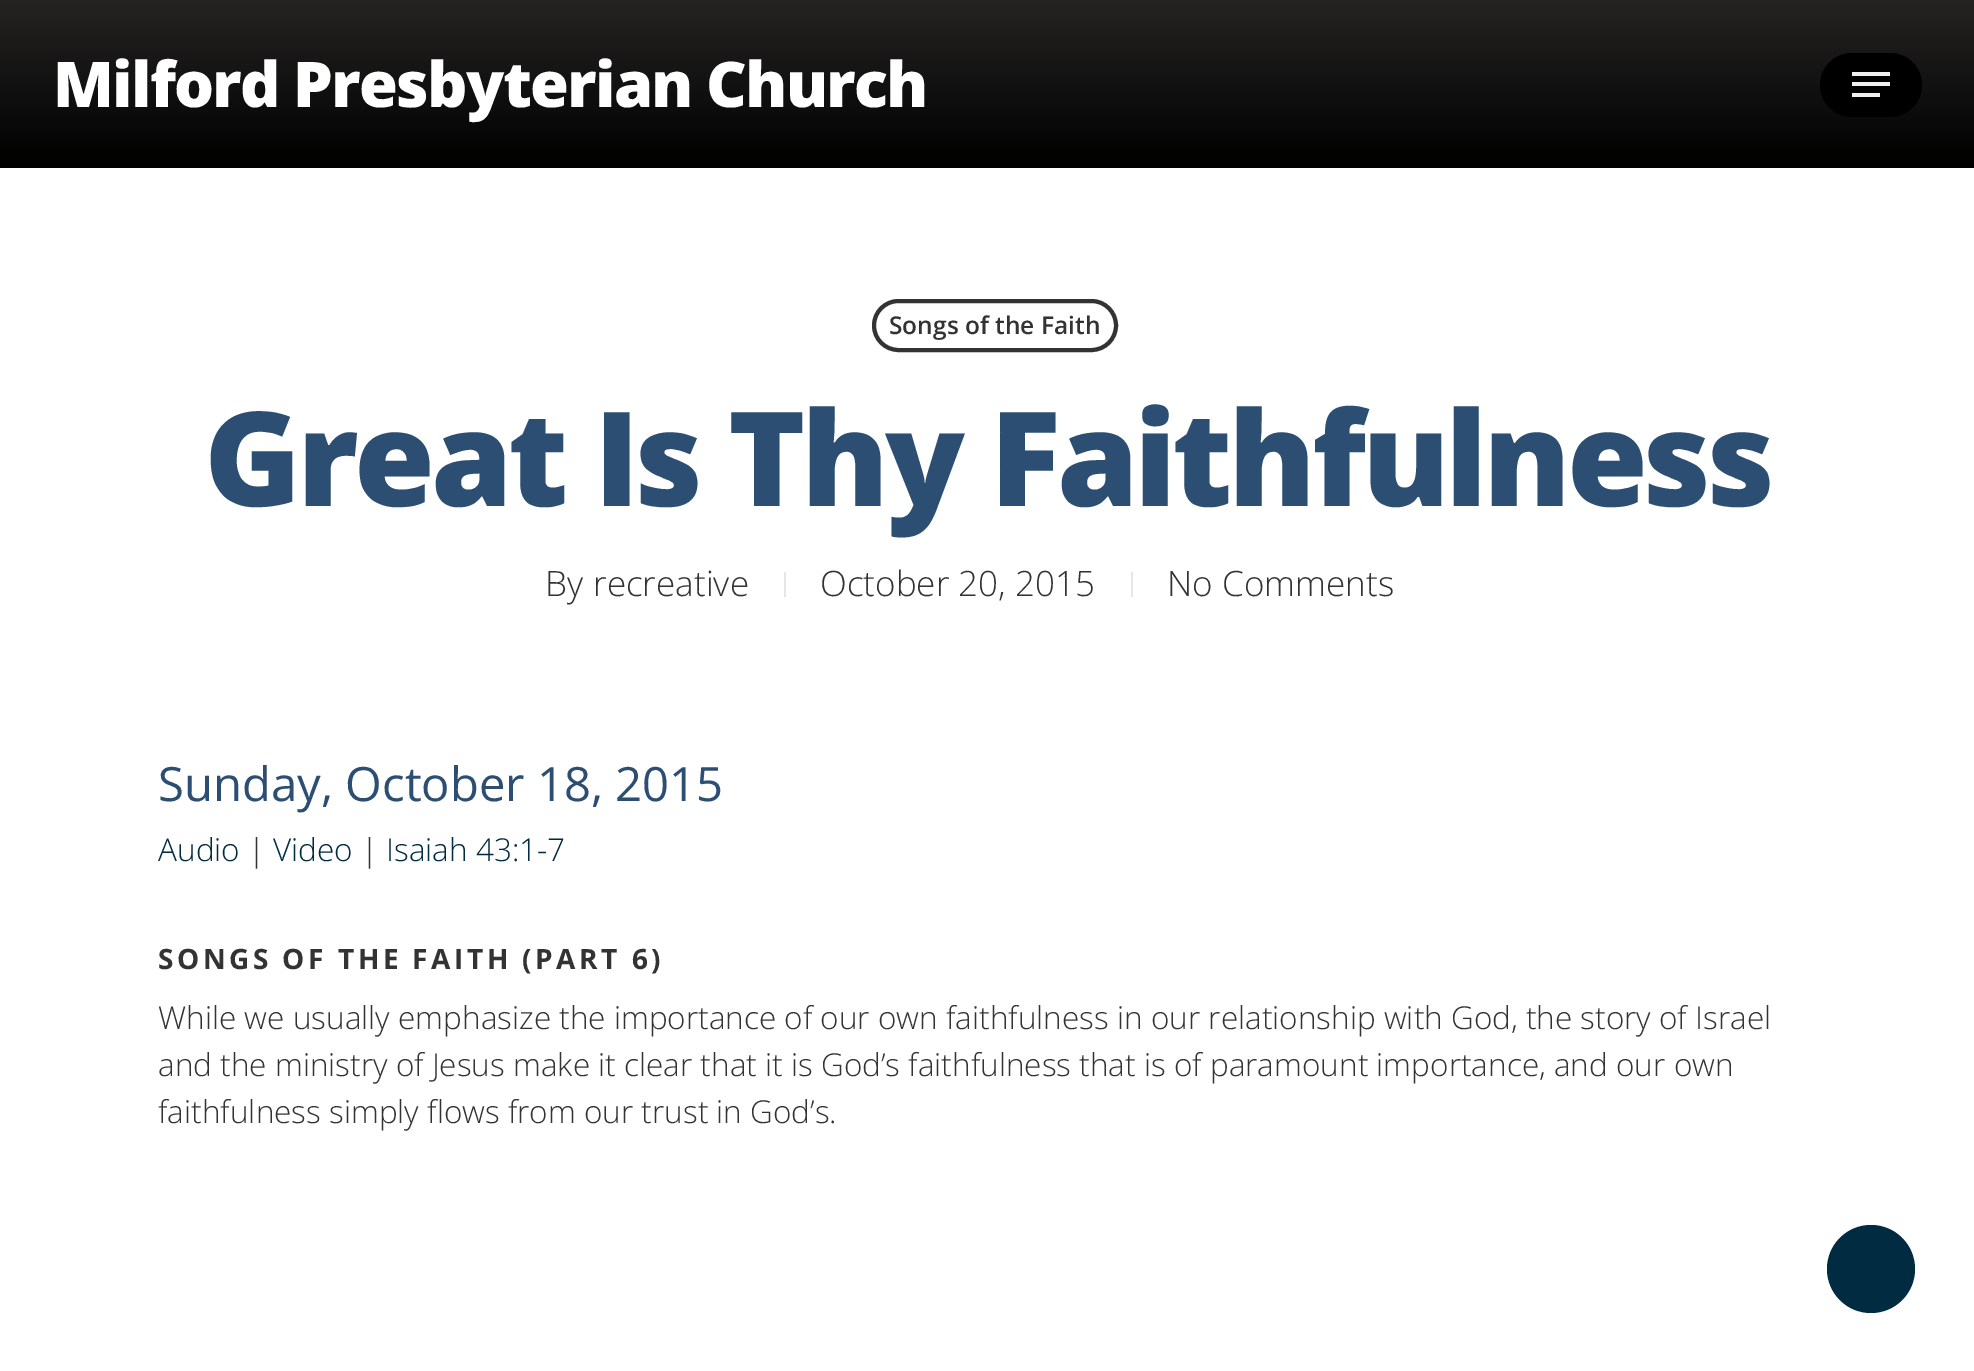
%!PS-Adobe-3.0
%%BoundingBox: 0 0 1974 1371
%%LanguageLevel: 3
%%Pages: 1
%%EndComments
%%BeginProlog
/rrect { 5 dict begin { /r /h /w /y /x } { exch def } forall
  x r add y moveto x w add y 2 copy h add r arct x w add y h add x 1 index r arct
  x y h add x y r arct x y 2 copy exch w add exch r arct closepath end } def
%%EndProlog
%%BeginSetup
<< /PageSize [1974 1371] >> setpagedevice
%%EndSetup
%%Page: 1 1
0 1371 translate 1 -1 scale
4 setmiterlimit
1 setgray
0 0 1974 1371 rectfill
gsave newpath 0 0 moveto 1974 0 lineto 1974 168 lineto 0 168 lineto closepath clip newpath
<< /ShadingType 2 /ColorSpace /DeviceRGB /Coords [987 0 987 168] /Extend [true true] /Function << /FunctionType 2 /Domain [0 1] /C0 [0.145 0.141 0.137] /C1 [0 0 0] /N 1 >> >> shfill grestore
0 setgray
1820 53 102 64 32 rrect fill
0.933 setgray
1852 72 38 4 rectfill
1852 93 28 4 rectfill
1852 82 38 4 rectfill
0.2 setgray
4 setlinewidth
874 301 242 49 24.5 rrect stroke
0.902 setgray
784 572 2 25 rectfill
1131 572 2 25 rectfill
0 0.169 0.255 setrgbcolor
newpath 1871 1269 44 0 360 arc closepath fill
/OpenSans-ExtraBold [63 0 0 -63 0 0] selectfont
1 setgray
53 107 moveto -1.75 0 (Milford Presbyterian Church) ashow
/OpenSans-SemiBold [24.5 0 0 -24.5 0 0] selectfont
0.2 setgray
889 334 moveto (Songs of the Faith) show
/OpenSans-ExtraBold [131.25 0 0 -131.25 0 0] selectfont
0.169 0.306 0.447 setrgbcolor
204 506 moveto -4.4 0 (Great Is Thy Faithfulness) ashow
/OpenSans-Light [35 0 0 -35 0 0] selectfont
0.2 setgray
545 596 moveto (By) show
593 596 moveto (recreative) show
820 596 moveto (October 20, 2015) show
1167 596 moveto (No Comments) show
/OpenSans-Regular [47.25 0 0 -47.25 0 0] selectfont
0.169 0.306 0.447 setrgbcolor
158 801 moveto (Sunday, October 18, 2015) show
/OpenSans-Light [31.5 0 0 -31.5 0 0] selectfont
0 0.169 0.255 setrgbcolor
158 861 moveto (Audio) show
0.2 setgray
248 861 moveto (|) show
0 0.169 0.255 setrgbcolor
273 861 moveto (Video) show
0.2 setgray
361 861 moveto (|) show
0 0.169 0.255 setrgbcolor
386 861 moveto (Isaiah 43:1-7) show
/OpenSans-Bold [28 0 0 -28 0 0] selectfont
0.2 setgray
158 969 moveto 3.5 0 (SONGS OF THE FAITH \(PART 6\)) ashow
/OpenSans-Light [31.5 0 0 -31.5 0 0] selectfont
158 1029 moveto (While we usually emphasize the importance of our own faithfulness in our relationship with God, the story of Israel) show
158 1076 moveto (and the ministry of Jesus make it clear that it is God’s faithfulness that is of paramount importance, and our own) show
158 1123 moveto (faithfulness simply flows from our trust in God’s.) show
showpage
%%EOF
